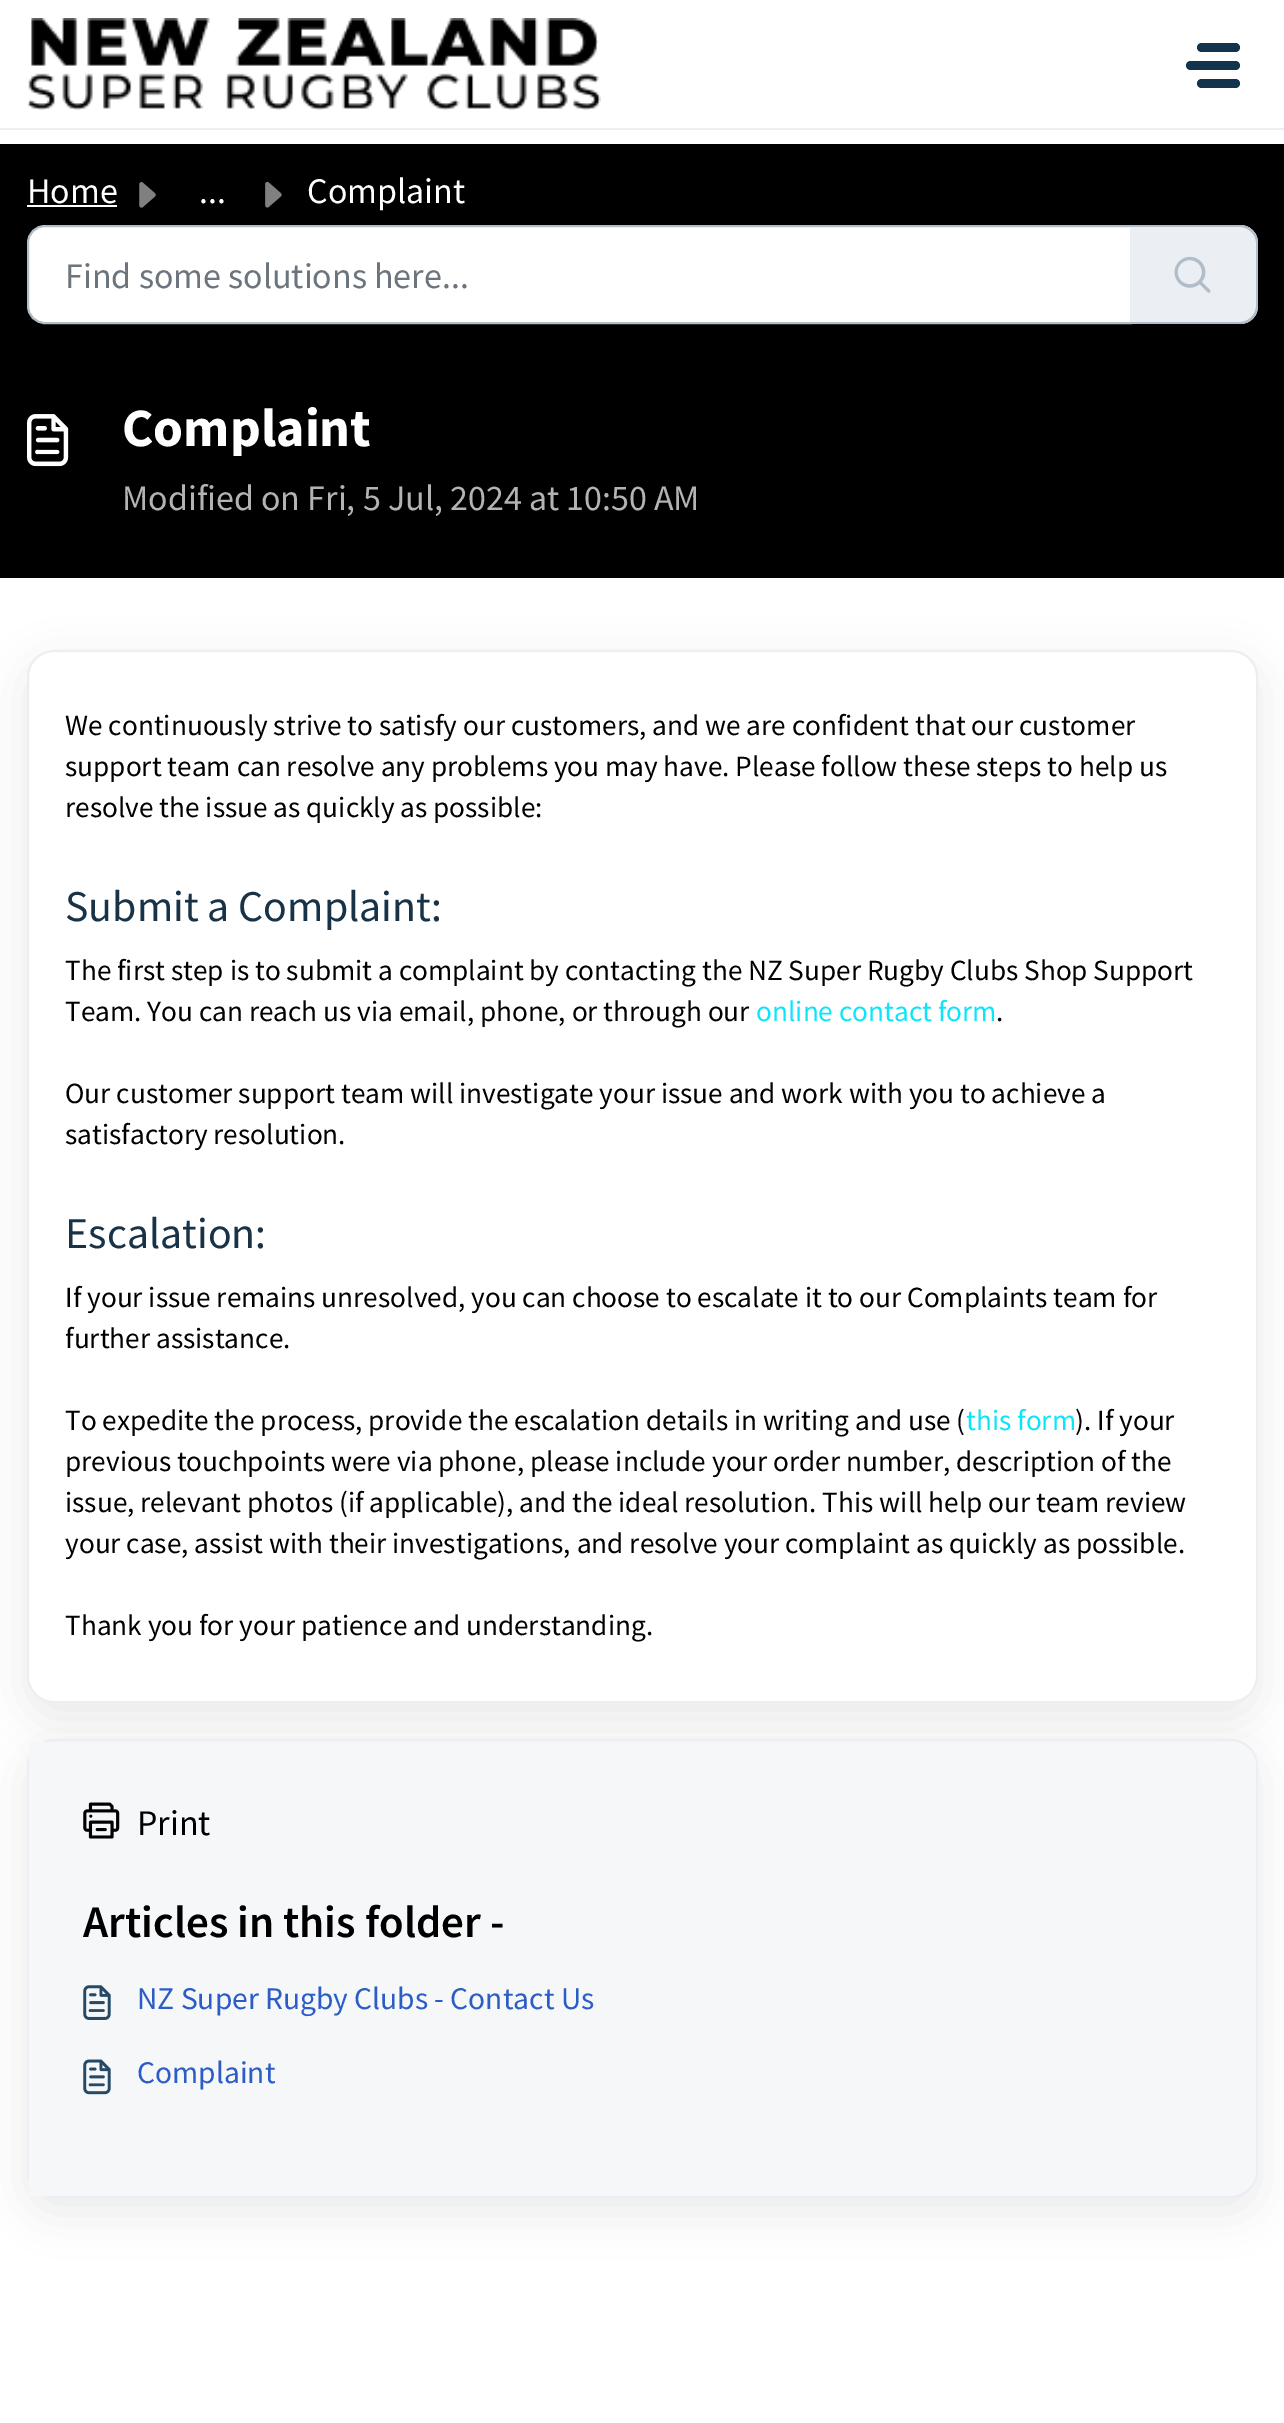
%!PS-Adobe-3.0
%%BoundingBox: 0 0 1284 2423
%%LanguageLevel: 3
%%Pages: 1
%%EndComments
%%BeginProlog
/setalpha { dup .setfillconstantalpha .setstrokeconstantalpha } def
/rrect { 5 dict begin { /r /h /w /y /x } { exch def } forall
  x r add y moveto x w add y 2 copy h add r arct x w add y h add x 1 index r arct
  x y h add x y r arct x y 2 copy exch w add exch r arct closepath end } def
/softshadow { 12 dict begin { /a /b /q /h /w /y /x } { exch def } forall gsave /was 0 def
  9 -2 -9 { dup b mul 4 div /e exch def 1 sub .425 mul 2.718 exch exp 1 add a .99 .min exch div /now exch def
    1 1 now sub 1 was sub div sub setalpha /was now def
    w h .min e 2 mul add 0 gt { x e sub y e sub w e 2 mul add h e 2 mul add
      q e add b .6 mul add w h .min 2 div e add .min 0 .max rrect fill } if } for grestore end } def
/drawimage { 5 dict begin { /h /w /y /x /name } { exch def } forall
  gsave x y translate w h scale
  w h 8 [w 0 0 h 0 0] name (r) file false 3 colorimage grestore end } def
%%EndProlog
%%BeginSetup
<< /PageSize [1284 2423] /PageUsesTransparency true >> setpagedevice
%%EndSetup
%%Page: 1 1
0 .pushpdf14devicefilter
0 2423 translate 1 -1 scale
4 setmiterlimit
1 setgray
0 0 1284 2423 rectfill
0.922 0.937 0.953 setrgbcolor
0 128 1284 2 rectfill
(images/1.raw) 27 18 574 92 drawimage
0.071 0.204 0.302 setrgbcolor
1197 43 43 9 4.5 rrect fill
1186 61 54 9 4.5 rrect fill
1197 79 43 9 4.5 rrect fill
0 setgray
0 144 1284 434 rectfill
1 setgray
27 205 90 2 rectfill
(images/2.raw) 139 182 17 26 drawimage
(images/3.raw) 265 181 17 27 drawimage
newpath 45 226 moveto 1131 226 lineto 1131 323 lineto 45 323 lineto 35.5 323 28 315.5 28 306 curveto 28 243 lineto 28 233.5 35.5 226 45 226 curveto closepath gsave fill grestore
0.694 0.741 0.784 setrgbcolor
2 setlinewidth
stroke
0.922 0.937 0.953 setrgbcolor
newpath 1130 225 moveto 1240 225 lineto 1250 225 1258 233 1258 243 curveto 1258 306 lineto 1258 316 1250 324 1240 324 curveto 1130 324 lineto closepath fill
0.694 0.741 0.784 setrgbcolor
newpath 1130 225 moveto 1240 225 lineto 1250 225 1258 233 1258 243 curveto 1258 306 lineto 1258 316 1250 324 1240 324 curveto 1130 324 lineto closepath 1130 227 moveto 1240 227 lineto 1248 227 1256 234 1256 243 curveto 1256 306 lineto 1256 315 1248 322 1240 322 curveto 1130 322 lineto closepath eofill
(images/4.raw) 1174 256 37 37 drawimage
(images/5.raw) 27 414 42 53 drawimage
gsave
newpath 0 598 moveto 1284 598 lineto 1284 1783 lineto 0 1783 lineto closepath 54 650 moveto 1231 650 lineto 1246 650 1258 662 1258 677 curveto 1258 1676 lineto 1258 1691 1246 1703 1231 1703 curveto 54 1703 lineto 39 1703 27 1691 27 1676 curveto 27 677 lineto 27 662 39 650 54 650 curveto closepath eoclip newpath
0.153 0.192 0.227 setrgbcolor
27 664 1231 1053 27 21.5 0.1 softshadow
grestore
0.922 0.937 0.953 setrgbcolor
28 651 1229 1051 26 rrect stroke
0.153 0.192 0.227 setrgbcolor
27 1753 1231 459 27 21.5 0.1 softshadow
0.922 0.937 0.953 setrgbcolor
28 1740 1229 457 26 rrect stroke
0.961 0.969 0.976 setrgbcolor
newpath 29 1742 moveto 1229 1742 lineto 1244 1742 1256 1754 1256 1769 curveto 1256 2169 lineto 1256 2184 1244 2196 1229 2196 curveto 29 2196 lineto closepath fill
(images/6.raw) 83 1802 37 37 drawimage
(images/7.raw) 83 1985 28 35 drawimage
(images/8.raw) 83 2059 28 36 drawimage
/SourceSansPro-Regular [36 0 0 -36 0 0] selectfont
1 setgray
27 203 moveto (Home) show
199 203 moveto (...) show
307 203 moveto (Complaint) show
0.424 0.459 0.49 setrgbcolor
65 288 moveto (Find some solutions here...) show
/SourceSansPro-Bold [54 0 0 -54 0 0] selectfont
1 setgray
122 446 moveto (Complaint) show
/SourceSansPro-Regular [36 0 0 -36 0 0] selectfont
0.702 setgray
122 510 moveto (Modified on Fri, 5 Jul, 2024 at 10:50 AM) show
/SourceSansPro-Regular [29.25 0 0 -29.25 0 0] selectfont
0 setgray
65 735 moveto (We continuously strive to satisfy our customers, and we are confident that our customer) show
65 776 moveto (support team can resolve any problems you may have. Please follow these steps to help us) show
65 817 moveto (resolve the issue as quickly as possible:) show
/SourceSansPro-Regular [43.9 0 0 -43.9 0 0] selectfont
0.094 0.196 0.278 setrgbcolor
65 921 moveto (Submit a Complaint:) show
/SourceSansPro-Regular [29.25 0 0 -29.25 0 0] selectfont
0 setgray
65 980 moveto (The first step is to submit a complaint by contacting the NZ Super Rugby Clubs Shop Support) show
65 1021 moveto (Team. You can reach us via email, phone, or through our) show
0.043 0.898 0.98 setrgbcolor
756 1021 moveto (online contact form) show
0 setgray
996 1021 moveto (.) show
65 1103 moveto (Our customer support team will investigate your issue and work with you to achieve a) show
65 1144 moveto (satisfactory resolution.) show
/SourceSansPro-Regular [43.9 0 0 -43.9 0 0] selectfont
0.094 0.196 0.278 setrgbcolor
65 1248 moveto (Escalation:) show
/SourceSansPro-Regular [29.25 0 0 -29.25 0 0] selectfont
0 setgray
65 1307 moveto (If your issue remains unresolved, you can choose to escalate it to our Complaints team for) show
65 1348 moveto (further assistance.) show
65 1430 moveto (To expedite the process, provide the escalation details in writing and use \() show
0.043 0.898 0.98 setrgbcolor
966 1430 moveto (this form) show
0 setgray
1075 1430 moveto (\). If your) show
65 1471 moveto (previous touchpoints were via phone, please include your order number, description of the) show
65 1512 moveto (issue, relevant photos \(if applicable\), and the ideal resolution. This will help our team review) show
65 1553 moveto (your case, assist with their investigations, and resolve your complaint as quickly as possible.) show
65 1635 moveto (Thank you for your patience and understanding.) show
/SourceSansPro-Regular [36 0 0 -36 0 0] selectfont
137 1835 moveto (Print) show
/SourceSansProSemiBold-SemiBold [45 0 0 -45 0 0] selectfont
83 1937 moveto (Articles in this folder -) show
/SourceSansPro-Regular [31.5 0 0 -31.5 0 0] selectfont
0.173 0.361 0.773 setrgbcolor
137 2009 moveto (NZ Super Rugby Clubs - Contact Us) show
137 2083 moveto (Complaint) show
.poppdf14devicefilter showpage
%%EOF
